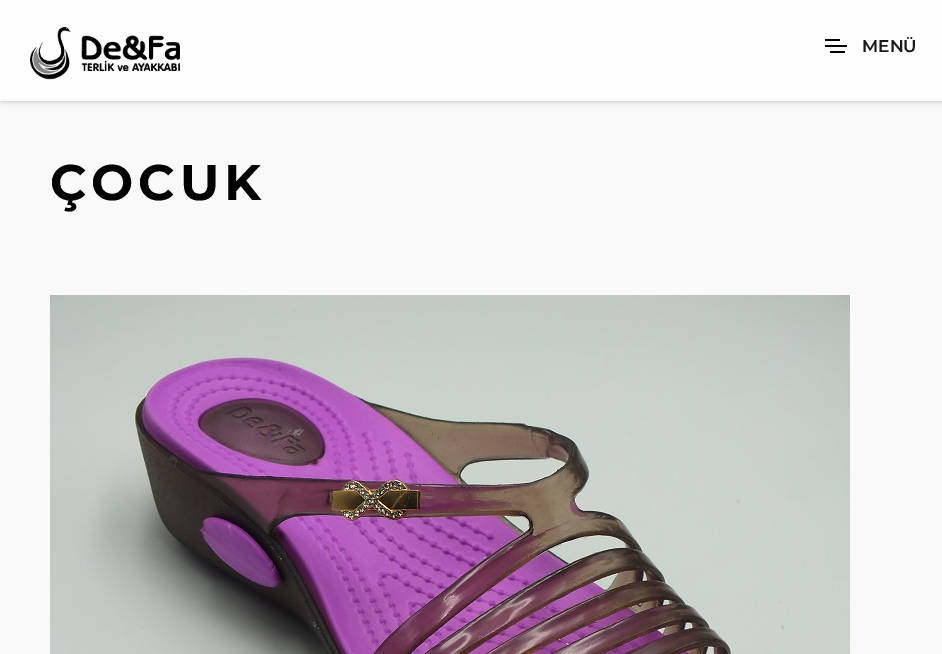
%!PS-Adobe-3.0
%%BoundingBox: 0 0 942 654
%%LanguageLevel: 3
%%Pages: 1
%%EndComments
%%BeginProlog
/setalpha { dup .setfillconstantalpha .setstrokeconstantalpha } def
/rrect { 5 dict begin { /r /h /w /y /x } { exch def } forall
  x r add y moveto x w add y 2 copy h add r arct x w add y h add x 1 index r arct
  x y h add x y r arct x y 2 copy exch w add exch r arct closepath end } def
/softshadow { 12 dict begin { /a /b /q /h /w /y /x } { exch def } forall gsave /was 0 def
  9 -2 -9 { dup b mul 4 div /e exch def 1 sub .425 mul 2.718 exch exp 1 add a .99 .min exch div /now exch def
    1 1 now sub 1 was sub div sub setalpha /was now def
    w h .min e 2 mul add 0 gt { x e sub y e sub w e 2 mul add h e 2 mul add
      q e add b .6 mul add w h .min 2 div e add .min 0 .max rrect fill } if } for grestore end } def
/drawimage { 5 dict begin { /h /w /y /x /name } { exch def } forall
  gsave x y translate w h scale
  w h 8 [w 0 0 h 0 0] name (r) file false 3 colorimage grestore end } def
%%EndProlog
%%BeginSetup
<< /PageSize [942 654] /PageUsesTransparency true >> setpagedevice
%%EndSetup
%%Page: 1 1
0 .pushpdf14devicefilter
0 654 translate 1 -1 scale
4 setmiterlimit
0.976 setgray
0 0 942 654 rectfill
0.8 setgray
1 1 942 101 0 2.5 1 softshadow
0.996 setgray
0 0 942 101 rectfill
(images/1.raw) 30 27 150 53 drawimage
0 setgray
825 39 15 2 rectfill
825 45 22 2 rectfill
830 51 15 2 rectfill
(images/2.raw) 50 295 800 359 drawimage
/Montserrat-SemiBold [17 0 0 -17 0 0] selectfont
0.098 setgray
862 52 moveto (MENÜ) show
/Montserrat-Bold [50 0 0 -50 0 0] selectfont
0 setgray
50 200 moveto 5 0 (ÇOCUK) ashow
.poppdf14devicefilter showpage
%%EOF
